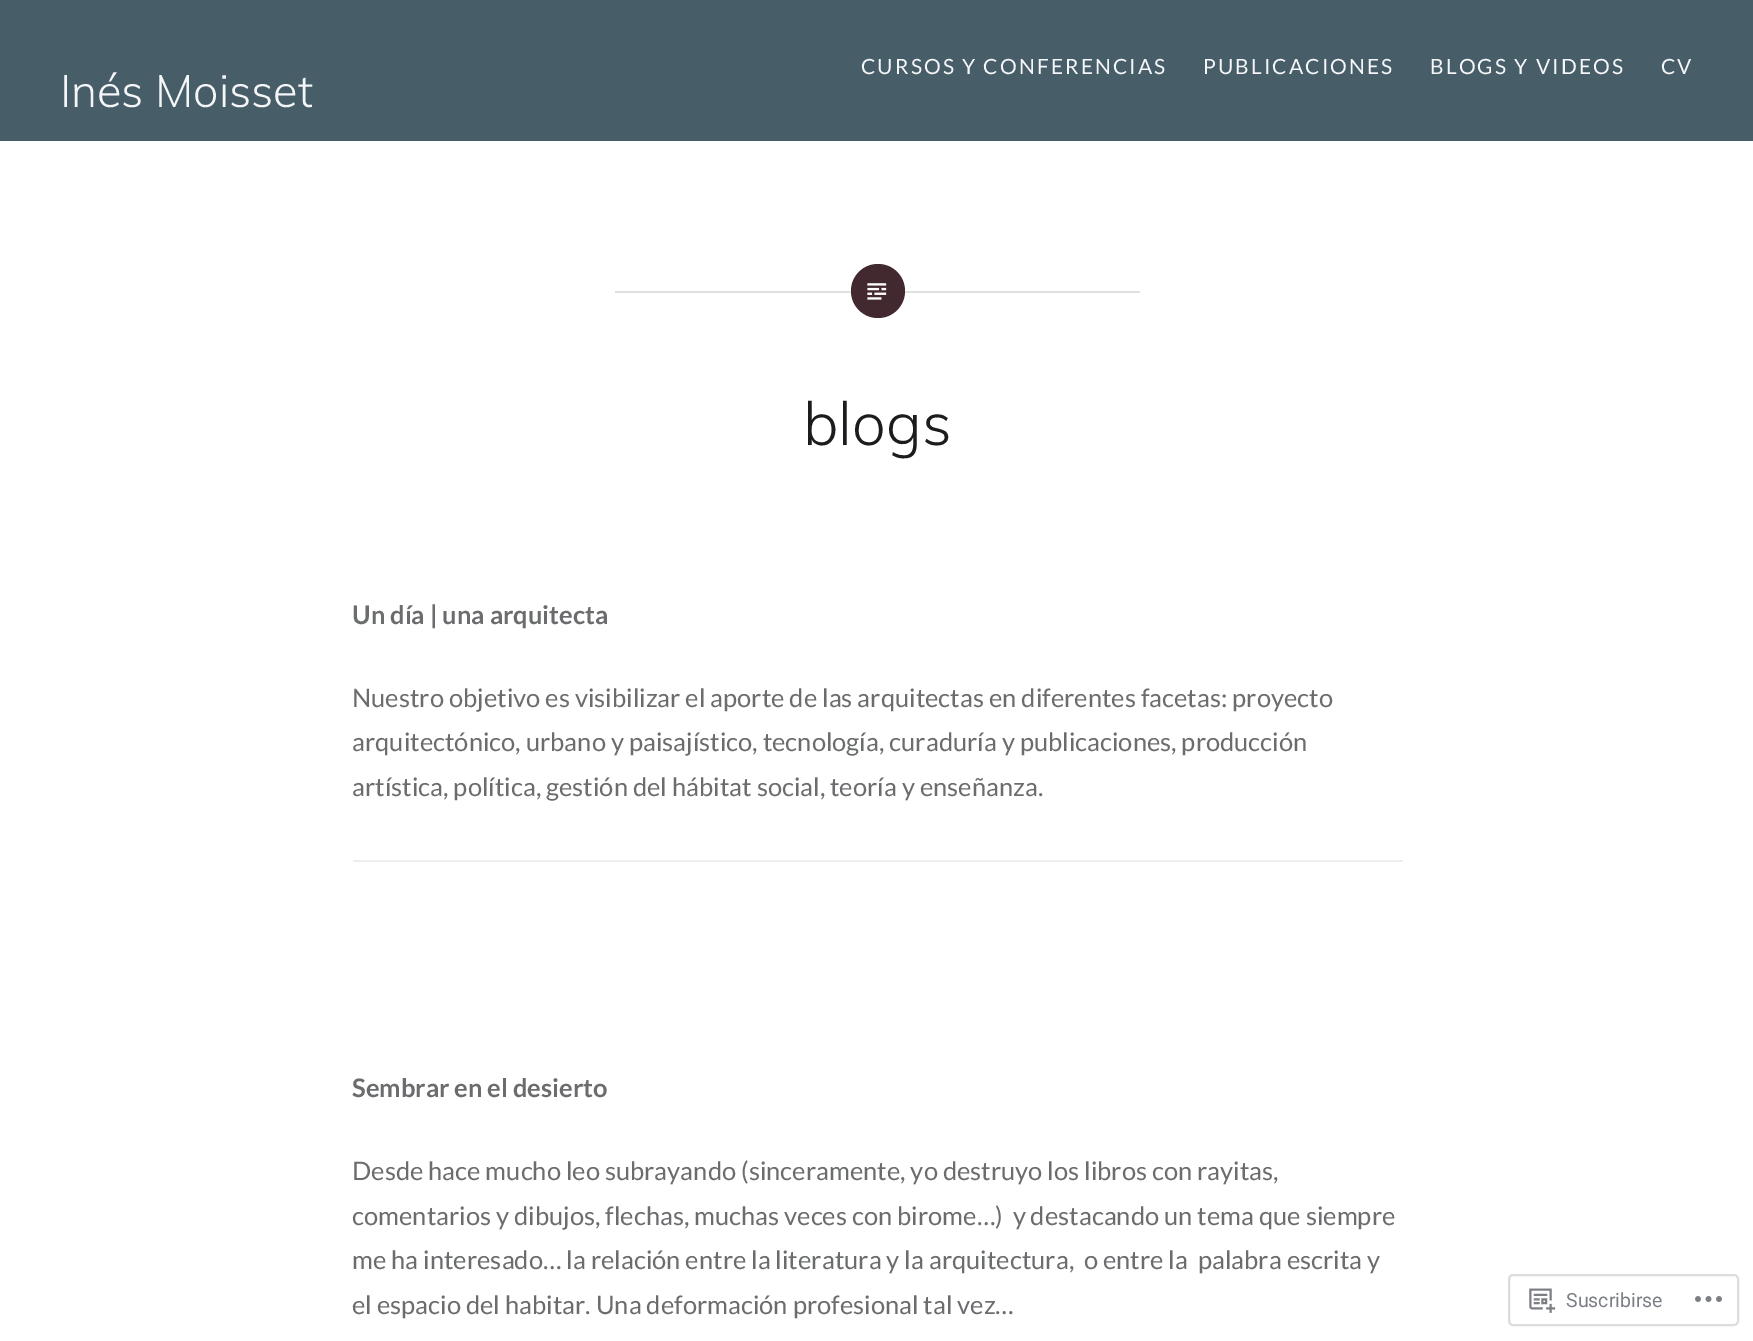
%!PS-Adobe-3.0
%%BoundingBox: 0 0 1753 1341
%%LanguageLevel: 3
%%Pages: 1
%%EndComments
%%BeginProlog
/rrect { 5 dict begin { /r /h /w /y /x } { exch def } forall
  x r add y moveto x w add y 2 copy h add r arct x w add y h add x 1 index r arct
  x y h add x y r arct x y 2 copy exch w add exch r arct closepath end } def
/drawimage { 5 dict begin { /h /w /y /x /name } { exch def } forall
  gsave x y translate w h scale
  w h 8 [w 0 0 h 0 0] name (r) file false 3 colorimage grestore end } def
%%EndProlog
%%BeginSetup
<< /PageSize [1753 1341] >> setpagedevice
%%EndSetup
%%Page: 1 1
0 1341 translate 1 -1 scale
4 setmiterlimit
1 setgray
0 0 1753 1341 rectfill
0.278 0.365 0.404 setrgbcolor
0 0 1753 141 rectfill
0.878 setgray
615 291 525 2 rectfill
0.259 0.157 0.184 setrgbcolor
newpath 878 291 27 0 360 arc closepath fill
(images/1.raw) 867 283 20 17 drawimage
0.933 setgray
353 860 1050 2 rectfill
0.867 0.867 0.875 setrgbcolor
2 setlinewidth
1509 1275 229 50 4 rrect stroke
(images/2.raw) 1529 1288 27 25 drawimage
(images/3.raw) 1695 1296 27 6 drawimage
/Lato-Regular [21 0 0 -21 0 0] selectfont
0.961 0.965 0.976 setrgbcolor
861 74 moveto 2.1 0 (CURSOS Y CONFERENCIAS) ashow
1203 74 moveto 2.1 0 (PUBLICACIONES) ashow
1430 74 moveto 2.1 0 (BLOGS Y VIDEOS) ashow
1661 74 moveto 2.1 0 (CV) ashow
/Muli-Light [45 0 0 -45 0 0] selectfont
60 107 moveto (Inés Moisset) show
/Muli-Light [60 0 0 -60 0 0] selectfont
0.102 0.11 0.118 setrgbcolor
803 445 moveto (blogs) show
/Lato-Bold [25.5 0 0 -25.5 0 0] selectfont
0.416 0.424 0.431 setrgbcolor
352 624 moveto (Un día | una arquitecta) show
/Lato-Regular [25.5 0 0 -25.5 0 0] selectfont
352 707 moveto (Nuestro objetivo es visibilizar el aporte de las arquitectas en diferentes facetas: proyecto) show
352 751 moveto (arquitectónico, urbano y paisajístico, tecnología, curaduría y publicaciones, producción) show
352 796 moveto (artística, política, gestión del hábitat social, teoría y enseñanza.) show
/Lato-Bold [25.5 0 0 -25.5 0 0] selectfont
352 1097 moveto (Sembrar en el desierto) show
/Lato-Regular [25.5 0 0 -25.5 0 0] selectfont
352 1180 moveto (Desde hace mucho leo subrayando \(sinceramente, yo destruyo los libros con rayitas,) show
352 1225 moveto (comentarios y dibujos, flechas, muchas veces con birome…\)  y destacando un tema que siempre) show
352 1269 moveto (me ha interesado… la relación entre la literatura y la arquitectura,  o entre la  palabra escrita y) show
352 1314 moveto (el espacio del habitar. Una deformación profesional tal vez…) show
/Roboto-Regular [19.5 0 0 -19.5 0 0] selectfont
0.482 0.498 0.522 setrgbcolor
1566 1307 moveto (Suscribirse) show
showpage
%%EOF
